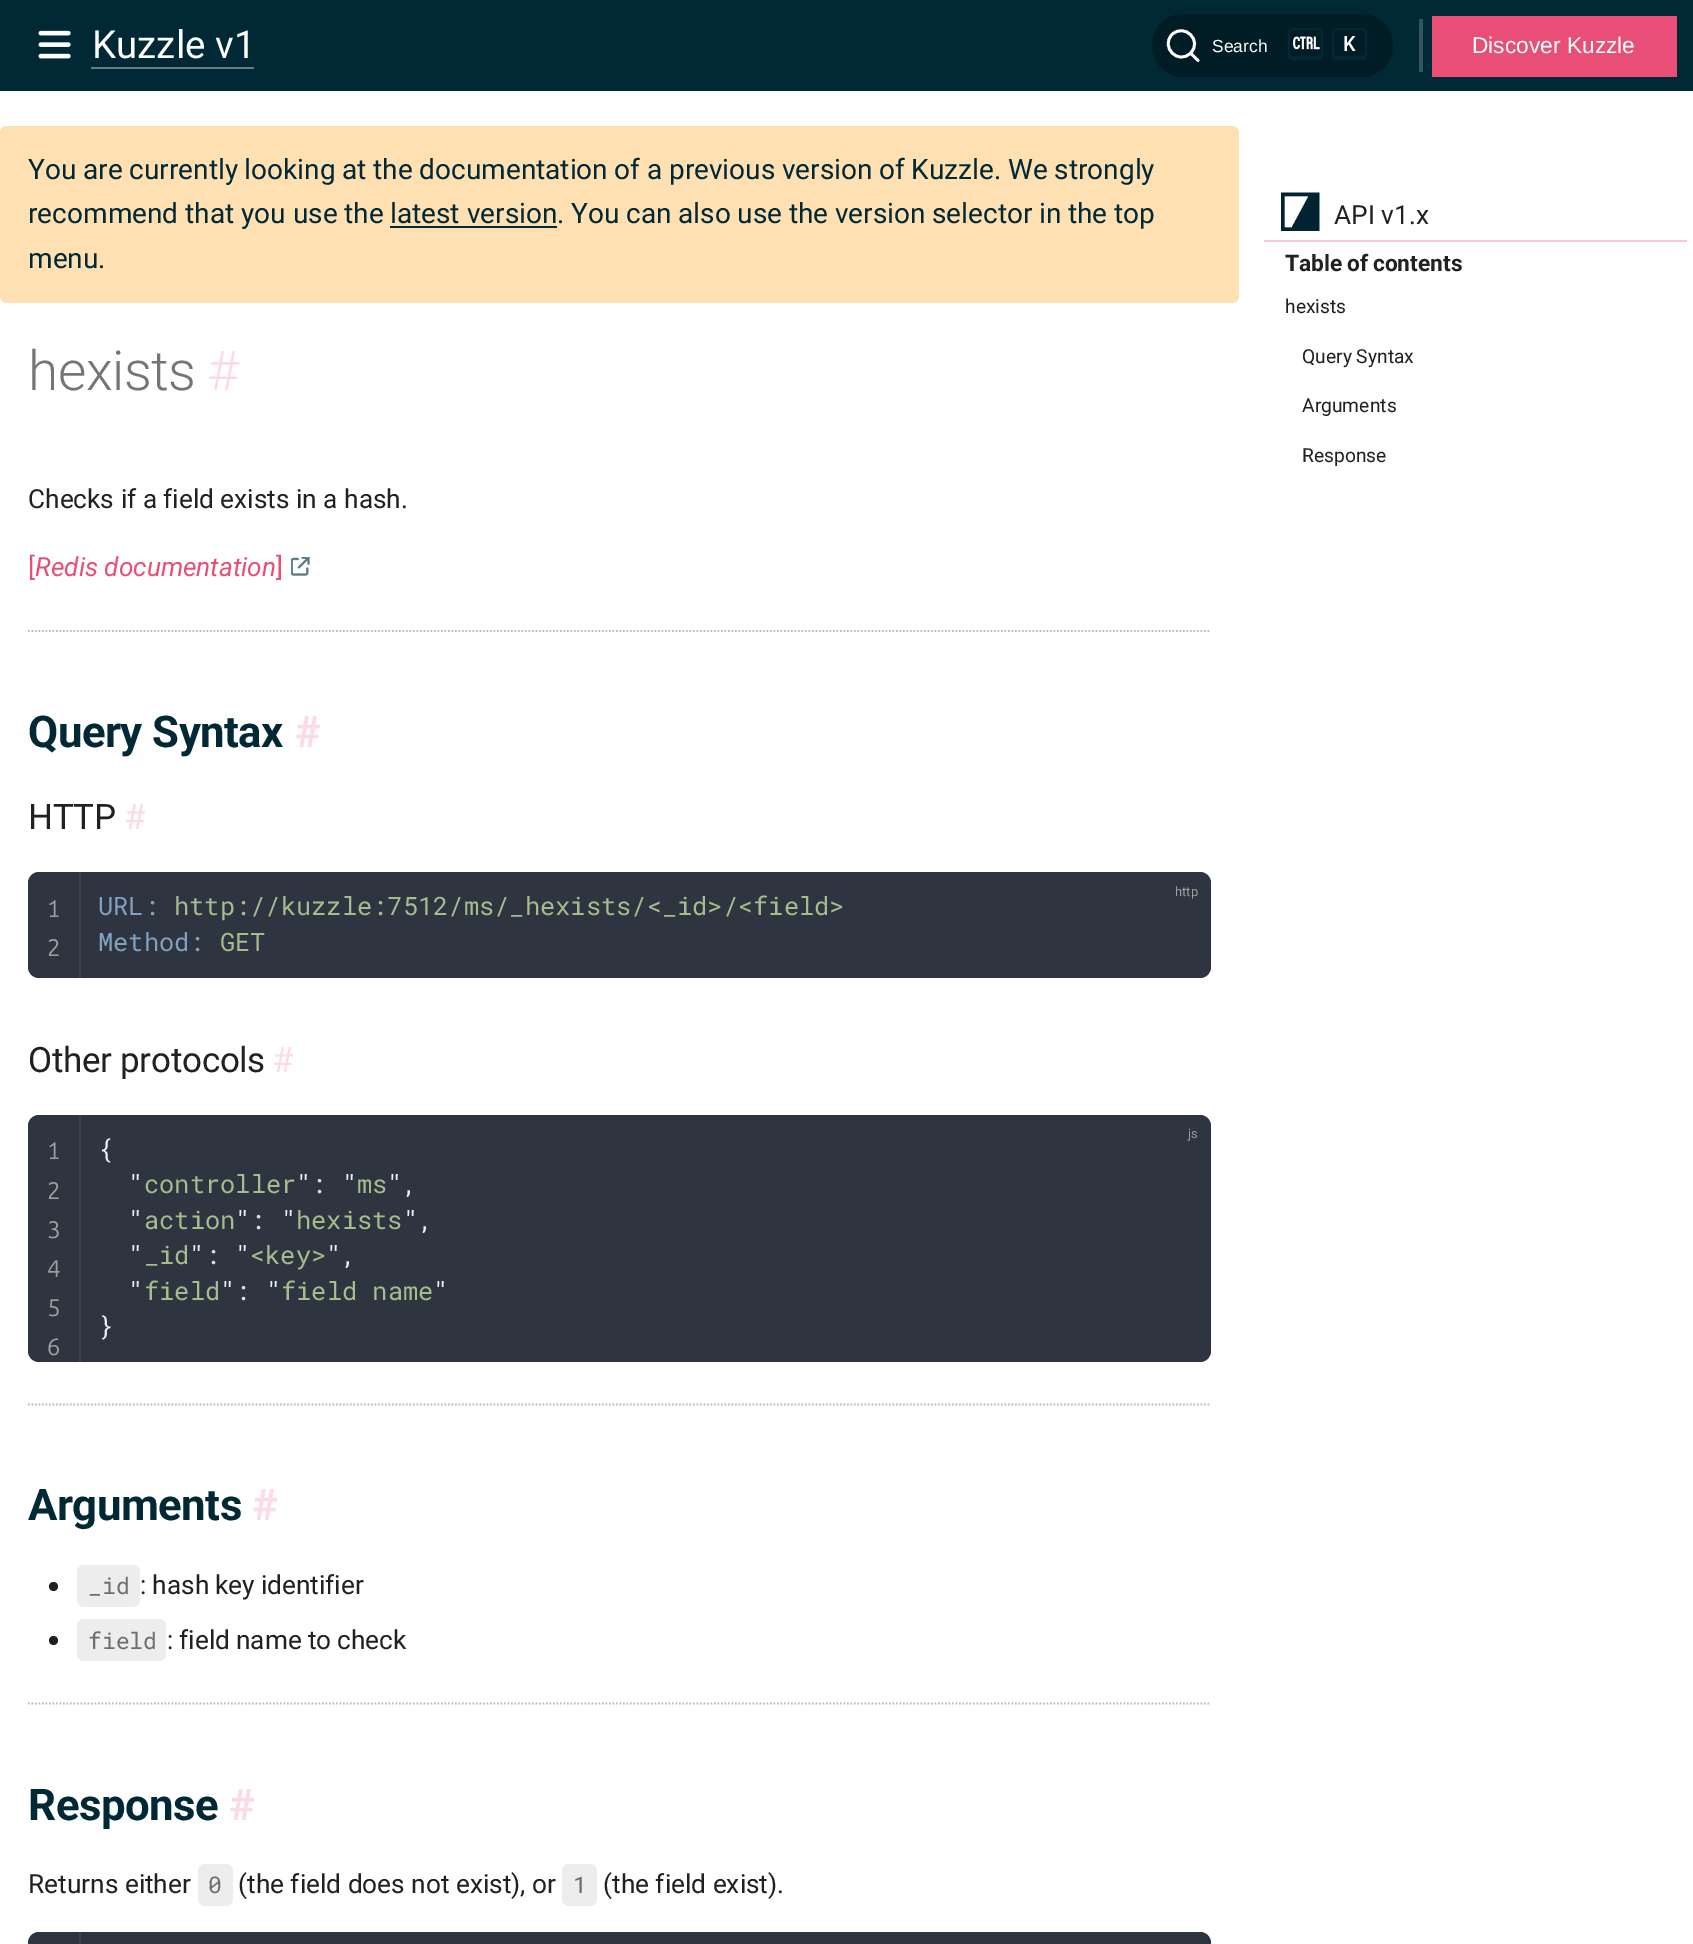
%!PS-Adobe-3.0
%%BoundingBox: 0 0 1693 1944
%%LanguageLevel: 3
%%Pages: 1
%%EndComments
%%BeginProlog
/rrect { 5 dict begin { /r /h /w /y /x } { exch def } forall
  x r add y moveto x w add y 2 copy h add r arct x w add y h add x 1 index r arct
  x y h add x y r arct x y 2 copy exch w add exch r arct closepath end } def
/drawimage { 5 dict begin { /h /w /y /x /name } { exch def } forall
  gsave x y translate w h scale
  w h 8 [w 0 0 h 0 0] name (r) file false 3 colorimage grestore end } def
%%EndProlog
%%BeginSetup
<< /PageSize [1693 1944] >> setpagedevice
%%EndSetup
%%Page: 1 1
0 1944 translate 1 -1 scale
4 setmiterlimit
1 setgray
0 0 1693 1944 rectfill
0 0.157 0.208 setrgbcolor
0 0 1693 91 rectfill
(images/1.raw) 38 30 33 29 drawimage
0.424 0.478 0.475 setrgbcolor
91 67 163 2 rectfill
0 0.11 0.145 setrgbcolor
1152 14 241 63 31.5 rrect fill
1 setgray
2.8 setlinewidth
1 setlinecap
1 setlinejoin
newpath 1190.5 53 moveto 1198 60.5 lineto 1190.5 53 lineto 1178.5 65.5 1160 47 1172 34.5 curveto 1184.5 22.5 1203 41 1190.5 53 curveto closepath stroke
0 0.157 0.208 setrgbcolor
2 setlinewidth
0 setlinecap
0 setlinejoin
1289 29 33 30 4 rrect stroke
newpath 1323 52 moveto 1322 55 1320 56 1314 56 curveto 1293 56 lineto 1290 56 1288.5 53.5 1288 51 curveto 1288 55 lineto 1288 58 1290 60 1293 60 curveto 1318 60 lineto 1321 60 1323 58 1323 55 curveto closepath fill
(images/2.raw) 1293 36 27 14 drawimage
1333 29 33 30 4 rrect stroke
newpath 1367 51.5 moveto 1366.5 54.5 1364 56 1357 56 curveto 1337 56 lineto 1334 56 1332.5 53.5 1332 51 curveto 1332 55 lineto 1332 58 1334 60 1337 60 curveto 1362 60 lineto 1365 60 1367 58 1367 55 curveto closepath fill
0.2 0.325 0.365 setrgbcolor
1419 19 4 53 rectfill
0.914 0.306 0.467 setrgbcolor
1432 16 245 61 rectfill
1 0.878 0.698 setrgbcolor
0 126 1239 177 7 rrect fill
0 0.157 0.208 setrgbcolor
390 226 167 2 rectfill
(images/3.raw) 291 557 19 19 drawimage
0.741 setgray
1.8 setlinewidth
[1.75 1.75] 0 setdash
newpath 28 631 moveto 1211 631 lineto stroke
0.18 0.204 0.251 setrgbcolor
28 872 1183 106 11 rrect fill
0.231 0.259 0.31 setrgbcolor
79 872 2 106 rectfill
0.18 0.204 0.251 setrgbcolor
28 1115 1183 247 11 rrect fill
0.231 0.259 0.31 setrgbcolor
79 1115 2 247 rectfill
0.741 setgray
newpath 28 1404.5 moveto 1211 1404.5 lineto stroke
0.129 setgray
newpath 53.5 1586.5 4.5 0 360 arc closepath fill
0.929 setgray
77 1565 63 42 7 rrect fill
0.129 setgray
newpath 53.5 1640.5 4.5 0 360 arc closepath fill
0.929 setgray
77 1619 89 42 7 rrect fill
0.741 setgray
newpath 28 1703.5 moveto 1211 1703.5 lineto stroke
0.929 setgray
198 1864 35 42 7 rrect fill
562 1864 35 42 7 rrect fill
0.18 0.204 0.251 setrgbcolor
28 1932 1183 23 11 rrect fill
0.231 0.259 0.31 setrgbcolor
79 1932 2 12 rectfill
0.973 0.792 0.839 setrgbcolor
1264 240 423 2 rectfill
(images/4.raw) 1281 192 39 39 drawimage
/Roboto-Regular [38.5 0 0 -38.5 0 0] selectfont
1 setgray
92 58 moveto (Kuzzle v1) show
/LiberationSans-Regular [17.5 0 0 -17.5 0 0] selectfont
1212 52 moveto (Search) show
/RobotoMono-Medium [21 0 0 -21 0 0] selectfont
1343 51 moveto (K) show
/LiberationSans-Regular [22.75 0 0 -22.75 0 0] selectfont
1472 53 moveto (Discover Kuzzle) show
/Roboto-Regular [28 0 0 -28 0 0] selectfont
0 0.157 0.208 setrgbcolor
28 179 moveto -0.25 0 32 (You are currently looking at the documentation of a previous version of Kuzzle. We strongly) widthshow
28 223 moveto (recommend that you use the) show
390 223 moveto (latest version) show
557 223 moveto -0.25 0 32 (. You can also use the version selector in the top) widthshow
28 268 moveto (menu.) show
/Roboto-Light [55 0 0 -55 0 0] selectfont
0.459 setgray
28 390 moveto -0.5 0 (hexists) ashow
0.984 0.863 0.894 setrgbcolor
207 390 moveto -0.5 0 (#) ashow
/Roboto-Regular [26.25 0 0 -26.25 0 0] selectfont
0.129 setgray
28 508 moveto (Checks if a field exists in a hash.) show
0.914 0.306 0.467 setrgbcolor
28 576 moveto ([) show
/Roboto-Italic [26.25 0 0 -26.25 0 0] selectfont
35 576 moveto (Redis documentation) show
/Roboto-Regular [26.25 0 0 -26.25 0 0] selectfont
276 576 moveto (]) show
/Roboto-Bold [43.75 0 0 -43.75 0 0] selectfont
0 0.157 0.208 setrgbcolor
28 747 moveto -0.5 0 (Query Syntax) ashow
0.984 0.863 0.894 setrgbcolor
295 747 moveto -0.5 0 (#) ashow
/Roboto-Regular [35 0 0 -35 0 0] selectfont
0.129 setgray
28 829 moveto -0.3 0 (HTTP) ashow
0.984 0.863 0.894 setrgbcolor
124 829 moveto -0.3 0 (#) ashow
/Roboto-Regular [13 0 0 -13 0 0] selectfont
0.62 setgray
1175 896 moveto (http) show
/UbuntuMono-Regular [24 0 0 -24 0 0] selectfont
47 917 moveto (1) show
47 956 moveto (2) show
/RobotoMono-Regular [25.4 0 0 -25.4 0 0] selectfont
0.506 0.631 0.757 setrgbcolor
98 915 moveto (URL:) show
0.639 0.745 0.549 setrgbcolor
174 915 moveto (http://kuzzle:7512/ms/_hexists/<_id>/<field>) show
0.506 0.631 0.757 setrgbcolor
98 951 moveto (Method:) show
0.639 0.745 0.549 setrgbcolor
220 951 moveto (GET) show
/Roboto-Regular [35 0 0 -35 0 0] selectfont
0.129 setgray
28 1072 moveto -0.3 0 (Other protocols) ashow
0.984 0.863 0.894 setrgbcolor
272 1072 moveto -0.3 0 (#) ashow
/Roboto-Regular [13 0 0 -13 0 0] selectfont
0.62 setgray
1188 1138 moveto (js) show
/UbuntuMono-Regular [24 0 0 -24 0 0] selectfont
47 1159 moveto (1) show
47 1199 moveto (2) show
47 1238 moveto (3) show
47 1277 moveto (4) show
47 1316 moveto (5) show
47 1355 moveto (6) show
/RobotoMono-Regular [25.4 0 0 -25.4 0 0] selectfont
0.925 0.937 0.957 setrgbcolor
98 1158 moveto ({) show
128 1193 moveto (") show
0.639 0.745 0.549 setrgbcolor
144 1193 moveto (controller) show
0.925 0.937 0.957 setrgbcolor
296 1193 moveto (") show
0.847 0.871 0.914 setrgbcolor
311 1193 moveto (:) show
0.925 0.937 0.957 setrgbcolor
342 1193 moveto (") show
0.639 0.745 0.549 setrgbcolor
357 1193 moveto (ms) show
0.925 0.937 0.957 setrgbcolor
387 1193 moveto (",) show
128 1229 moveto (") show
0.639 0.745 0.549 setrgbcolor
144 1229 moveto (action) show
0.925 0.937 0.957 setrgbcolor
235 1229 moveto (") show
0.847 0.871 0.914 setrgbcolor
250 1229 moveto (:) show
0.925 0.937 0.957 setrgbcolor
281 1229 moveto (") show
0.639 0.745 0.549 setrgbcolor
296 1229 moveto (hexists) show
0.925 0.937 0.957 setrgbcolor
403 1229 moveto (",) show
128 1264 moveto (") show
0.639 0.745 0.549 setrgbcolor
144 1264 moveto (_id) show
0.925 0.937 0.957 setrgbcolor
189 1264 moveto (") show
0.847 0.871 0.914 setrgbcolor
205 1264 moveto (:) show
0.925 0.937 0.957 setrgbcolor
235 1264 moveto (") show
0.639 0.745 0.549 setrgbcolor
250 1264 moveto (<key>) show
0.925 0.937 0.957 setrgbcolor
326 1264 moveto (",) show
128 1300 moveto (") show
0.639 0.745 0.549 setrgbcolor
144 1300 moveto (field) show
0.925 0.937 0.957 setrgbcolor
220 1300 moveto (") show
266 1300 moveto (") show
0.639 0.745 0.549 setrgbcolor
281 1300 moveto (field name) show
0.925 0.937 0.957 setrgbcolor
433 1300 moveto (") show
0.847 0.871 0.914 setrgbcolor
235 1300 moveto (:) show
0.925 0.937 0.957 setrgbcolor
98 1335 moveto (}) show
/Roboto-Bold [43.75 0 0 -43.75 0 0] selectfont
0 0.157 0.208 setrgbcolor
28 1520 moveto -0.5 0 (Arguments) ashow
0.984 0.863 0.894 setrgbcolor
252 1520 moveto -0.5 0 (#) ashow
/RobotoMono-Regular [23 0 0 -23 0 0] selectfont
0.427 setgray
88 1594 moveto (_id) show
/Roboto-Regular [26.25 0 0 -26.25 0 0] selectfont
0.129 setgray
140 1594 moveto -0.5 0 32 (: hash key identifier) widthshow
/RobotoMono-Regular [23 0 0 -23 0 0] selectfont
0.427 setgray
88 1649 moveto (field) show
/Roboto-Regular [26.25 0 0 -26.25 0 0] selectfont
0.129 setgray
167 1649 moveto -0.5 0 32 (: field name to check) widthshow
/Roboto-Bold [43.75 0 0 -43.75 0 0] selectfont
0 0.157 0.208 setrgbcolor
28 1820 moveto -0.5 0 (Response) ashow
0.984 0.863 0.894 setrgbcolor
229 1820 moveto -0.5 0 (#) ashow
/Roboto-Regular [26.25 0 0 -26.25 0 0] selectfont
0.129 setgray
28 1893 moveto (Returns either) show
/RobotoMono-Regular [23 0 0 -23 0 0] selectfont
0.427 setgray
208 1893 moveto (0) show
/Roboto-Regular [26.25 0 0 -26.25 0 0] selectfont
0.129 setgray
238 1893 moveto (\(the field does not exist\), or) show
/RobotoMono-Regular [23 0 0 -23 0 0] selectfont
0.427 setgray
573 1893 moveto (1) show
/Roboto-Regular [26.25 0 0 -26.25 0 0] selectfont
0.129 setgray
603 1893 moveto (\(the field exist\).) show
1334 224 moveto (API v1.x) show
/Roboto-Bold [22.75 0 0 -22.75 0 0] selectfont
1285 271 moveto -1 0 32 (Table of contents) widthshow
/Roboto-Regular [19.25 0 0 -19.25 0 0] selectfont
1285 313 moveto (hexists) show
1302 363 moveto (Query Syntax) show
1302 412 moveto (Arguments) show
1302 462 moveto (Response) show
showpage
%%EOF
